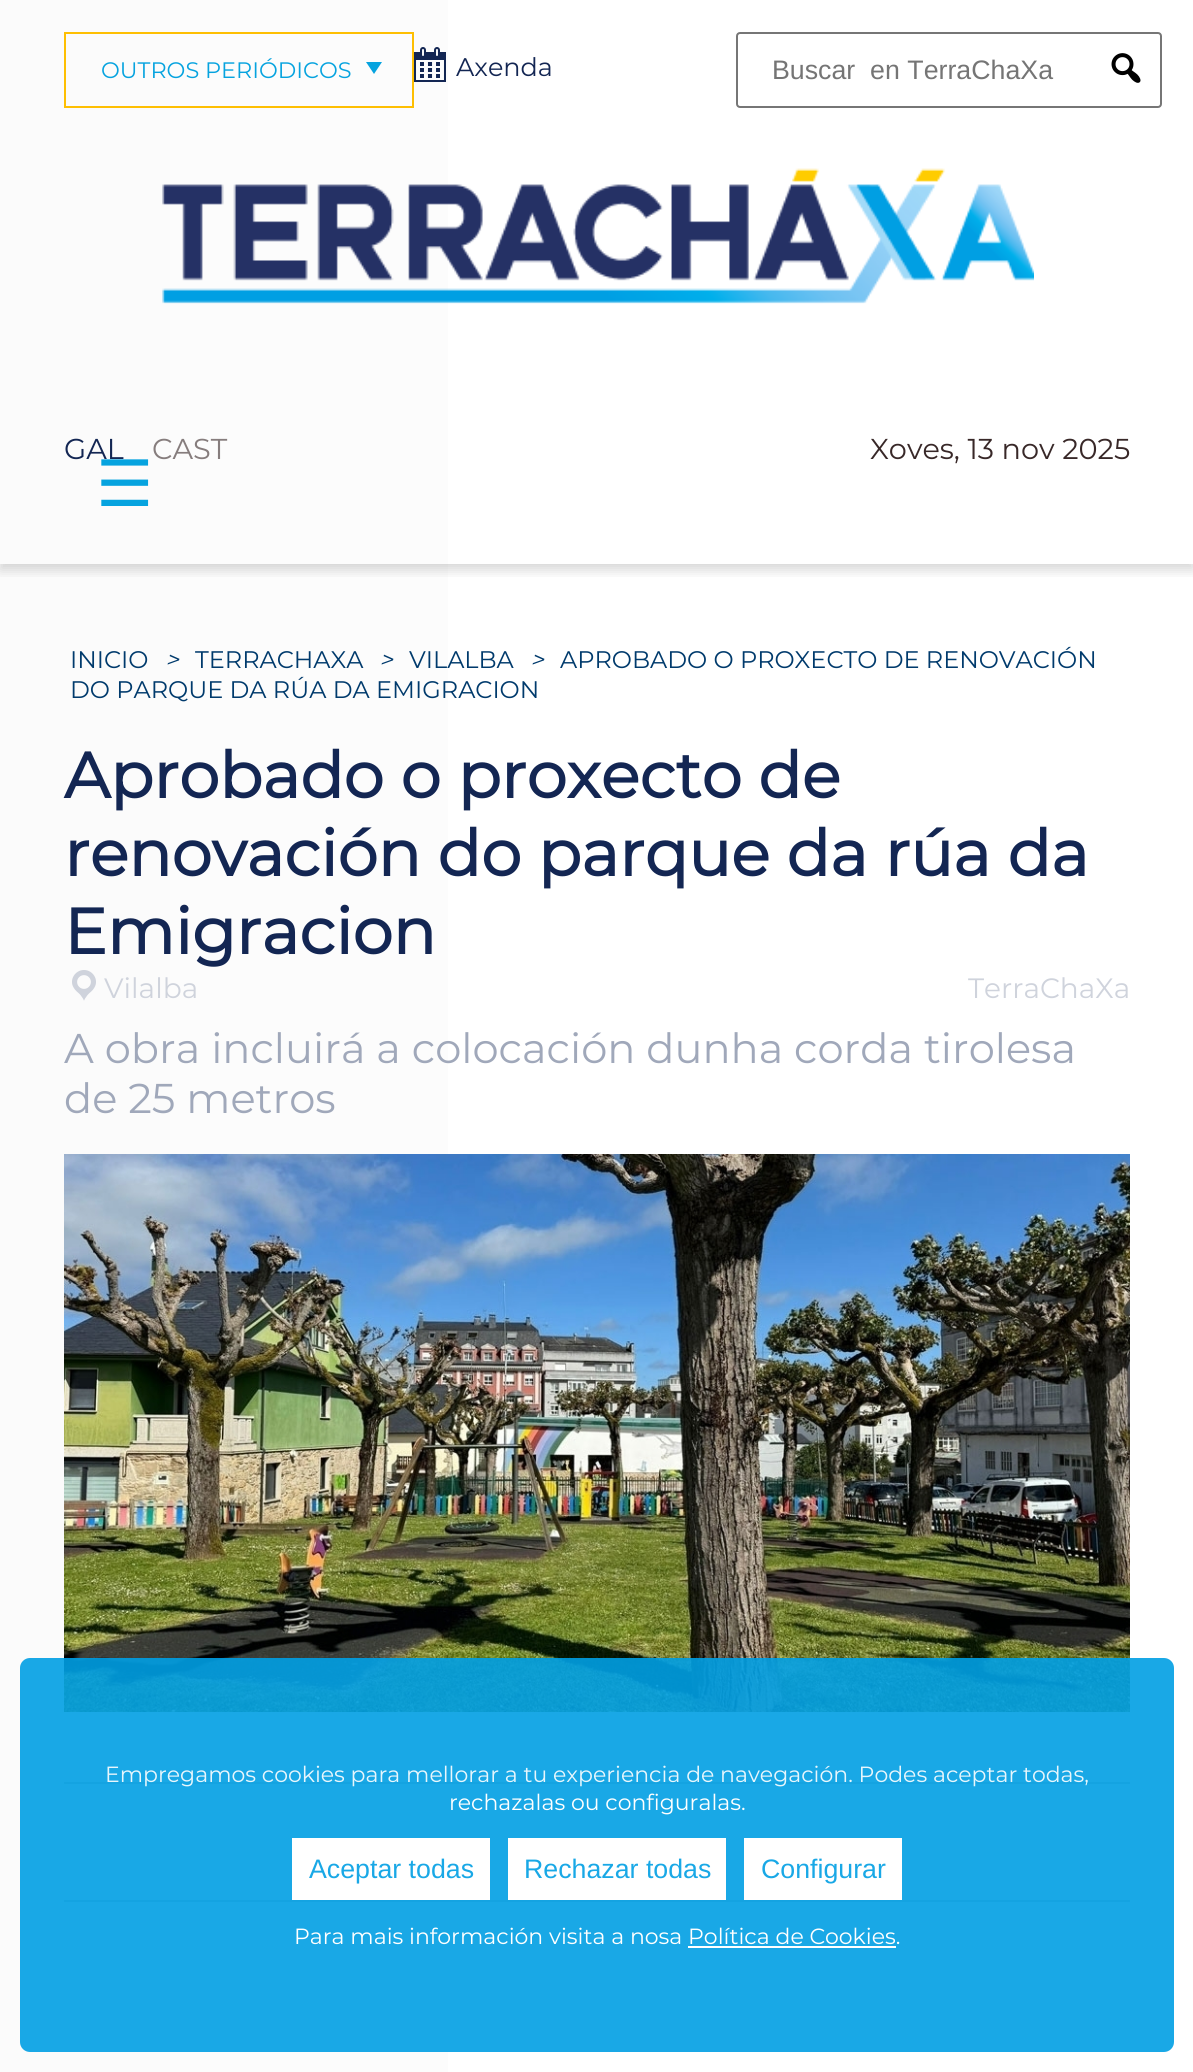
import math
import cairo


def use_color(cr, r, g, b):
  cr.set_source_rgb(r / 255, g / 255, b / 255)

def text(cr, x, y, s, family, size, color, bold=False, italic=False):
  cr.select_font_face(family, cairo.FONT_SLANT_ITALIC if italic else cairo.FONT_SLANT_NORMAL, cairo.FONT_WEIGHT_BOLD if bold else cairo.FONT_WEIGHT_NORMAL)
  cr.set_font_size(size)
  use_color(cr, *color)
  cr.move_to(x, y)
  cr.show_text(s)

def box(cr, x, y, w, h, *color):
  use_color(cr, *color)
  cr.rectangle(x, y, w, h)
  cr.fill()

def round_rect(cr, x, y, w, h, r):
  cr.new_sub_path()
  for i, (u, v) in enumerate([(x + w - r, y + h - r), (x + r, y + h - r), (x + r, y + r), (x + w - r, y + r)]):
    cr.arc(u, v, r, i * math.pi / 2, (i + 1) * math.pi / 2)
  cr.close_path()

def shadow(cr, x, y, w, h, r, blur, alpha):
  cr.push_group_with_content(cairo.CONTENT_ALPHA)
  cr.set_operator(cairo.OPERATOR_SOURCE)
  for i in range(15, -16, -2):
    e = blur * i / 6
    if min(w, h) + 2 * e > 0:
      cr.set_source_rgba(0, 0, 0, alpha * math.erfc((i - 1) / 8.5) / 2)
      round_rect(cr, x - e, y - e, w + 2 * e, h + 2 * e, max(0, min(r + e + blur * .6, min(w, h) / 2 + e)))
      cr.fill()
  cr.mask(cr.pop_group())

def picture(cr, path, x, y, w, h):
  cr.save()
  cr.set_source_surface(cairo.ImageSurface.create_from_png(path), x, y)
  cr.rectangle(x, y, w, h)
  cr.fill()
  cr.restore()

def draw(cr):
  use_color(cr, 255, 255, 255)
  cr.paint()
  gradient = cairo.LinearGradient(0, 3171, 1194, 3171)
  gradient.add_color_stop_rgba(0, 0.984, 0.984, 0.984, 1)
  gradient.add_color_stop_rgba(0.5, 0.992, 0.992, 0.992, 1)
  gradient.add_color_stop_rgba(1, 1, 1, 1, 1)
  cr.set_source(gradient)
  cr.rectangle(0, 0, 448, 2072)
  cr.fill()
  cr.save()
  cr.rectangle(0, 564, 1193, 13)
  cr.clip()
  use_color(cr, 0, 0, 0)
  shadow(cr, 0, 6, 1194, 564, 0, 6, 0.16)
  cr.restore()
  cr.rectangle(65, 33, 348, 74)
  use_color(cr, 254, 191, 2)
  cr.stroke()
  use_color(cr, 6, 163, 223)
  cr.new_path()
  cr.move_to(382, 62)
  cr.line_to(374, 74)
  cr.line_to(366, 62)
  cr.close_path()
  cr.fill()
  picture(cr, "img_01.png", 414, 47, 32, 35)
  round_rect(cr, 737, 33, 424, 74, 3)
  use_color(cr, 118, 118, 118)
  cr.stroke()
  picture(cr, "img_02.png", 1111, 53, 30, 30)
  picture(cr, "img_03.png", 162, 168, 872, 136)
  picture(cr, "img_04.png", 72, 970, 24, 31)
  picture(cr, "img_05.png", 64, 1154, 1066, 558)
  box(cr, 64, 1782, 1066, 2, 204, 204, 204)
  box(cr, 64, 1900, 1066, 2, 204, 204, 204)
  cr.set_source_rgba(0, 0.624, 0.89, 0.9)
  round_rect(cr, 20, 1658, 1154, 394, 10)
  cr.fill()
  box(cr, 292, 1838, 198, 62, 255, 255, 255)
  box(cr, 508, 1838, 218, 62, 255, 255, 255)
  box(cr, 744, 1838, 158, 62, 255, 255, 255)
  box(cr, 688, 1946, 208, 2, 255, 255, 255)
  text(cr, 101, 78, "OUTROS PERIÓDICOS", "Montserrat Thin", 22.4, (6, 163, 223))
  text(cr, 456, 76, "Axenda", "Montserrat Thin", 25.5, (19, 38, 83))
  text(cr, 772, 79, "Buscar  en TerraChaXa", "Liberation Sans", 26.75, (117, 117, 117))
  text(cr, 64, 459, "GAL", "Montserrat Thin", 28.75, (19, 38, 83))
  text(cr, 152, 459, "CAST", "Montserrat Thin", 28.75, (134, 125, 125))
  text(cr, 870, 459, "Xoves, 13 nov 2025", "Montserrat Thin", 28.75, (56, 40, 40))
  text(cr, 96, 506, "☰", "DejaVu Sans", 64, (6, 163, 223))
  text(cr, 70, 668, "INICIO", "Montserrat Thin", 24, (0, 58, 108))
  text(cr, 165, 668, ">", "Montserrat Thin", 24, (0, 58, 108), italic=True)
  text(cr, 195, 668, "TERRACHAXA", "Montserrat Thin", 24, (0, 58, 108))
  text(cr, 379, 668, ">", "Montserrat Thin", 24, (0, 58, 108), italic=True)
  text(cr, 409, 668, "VILALBA", "Montserrat Thin", 24, (0, 58, 108))
  text(cr, 530, 668, ">", "Montserrat Thin", 24, (0, 58, 108), italic=True)
  text(cr, 560, 668, "APROBADO O PROXECTO DE RENOVACIÓN", "Montserrat Thin", 24, (0, 58, 108))
  text(cr, 70, 698, "DO PARQUE DA RÚA DA EMIGRACION", "Montserrat Thin", 24, (0, 58, 108))
  text(cr, 64, 798, "Aprobado o proxecto de", "Montserrat", 64, (19, 38, 83), bold=True)
  text(cr, 64, 876, "renovación do parque da rúa da", "Montserrat", 64, (19, 38, 83), bold=True)
  text(cr, 64, 954, "Emigracion", "Montserrat", 64, (19, 38, 83), bold=True)
  text(cr, 104, 998, "Vilalba", "Montserrat Thin", 28, (207, 211, 220))
  text(cr, 968, 998, "TerraChaXa", "Montserrat Thin", 28, (207, 211, 220))
  text(cr, 64, 1063, "A obra incluirá a colocación dunha corda tirolesa", "Montserrat Thin", 41.6, (160, 168, 186))
  text(cr, 64, 1113, "de 25 metros", "Montserrat Thin", 41.6, (160, 168, 186))
  text(cr, 105, 1782, "Empregamos cookies para mellorar a tu experiencia de navegación. Podes aceptar todas,", "Montserrat Thin", 22, (232, 246, 252))
  text(cr, 449, 1810, "rechazalas ou configuralas.", "Montserrat Thin", 22, (255, 255, 255))
  text(cr, 309, 1878, "Aceptar todas", "Liberation Sans", 26.75, (25, 168, 230))
  text(cr, 524, 1878, "Rechazar todas", "Liberation Sans", 26.75, (25, 168, 230))
  text(cr, 761, 1878, "Configurar", "Liberation Sans", 26.75, (25, 168, 230))
  text(cr, 294, 1944, "Para mais información visita a nosa Política de Cookies.", "Montserrat Thin", 22, (255, 255, 255))


surface = cairo.ImageSurface(cairo.FORMAT_RGB24, 1193, 2072)
cr = cairo.Context(surface)
options = cairo.FontOptions()
options.set_hint_metrics(cairo.HINT_METRICS_OFF)
options.set_hint_style(cairo.HINT_STYLE_NONE)
cr.set_font_options(options)
cr.set_miter_limit(4)
draw(cr)
surface.write_to_png("out.png")
